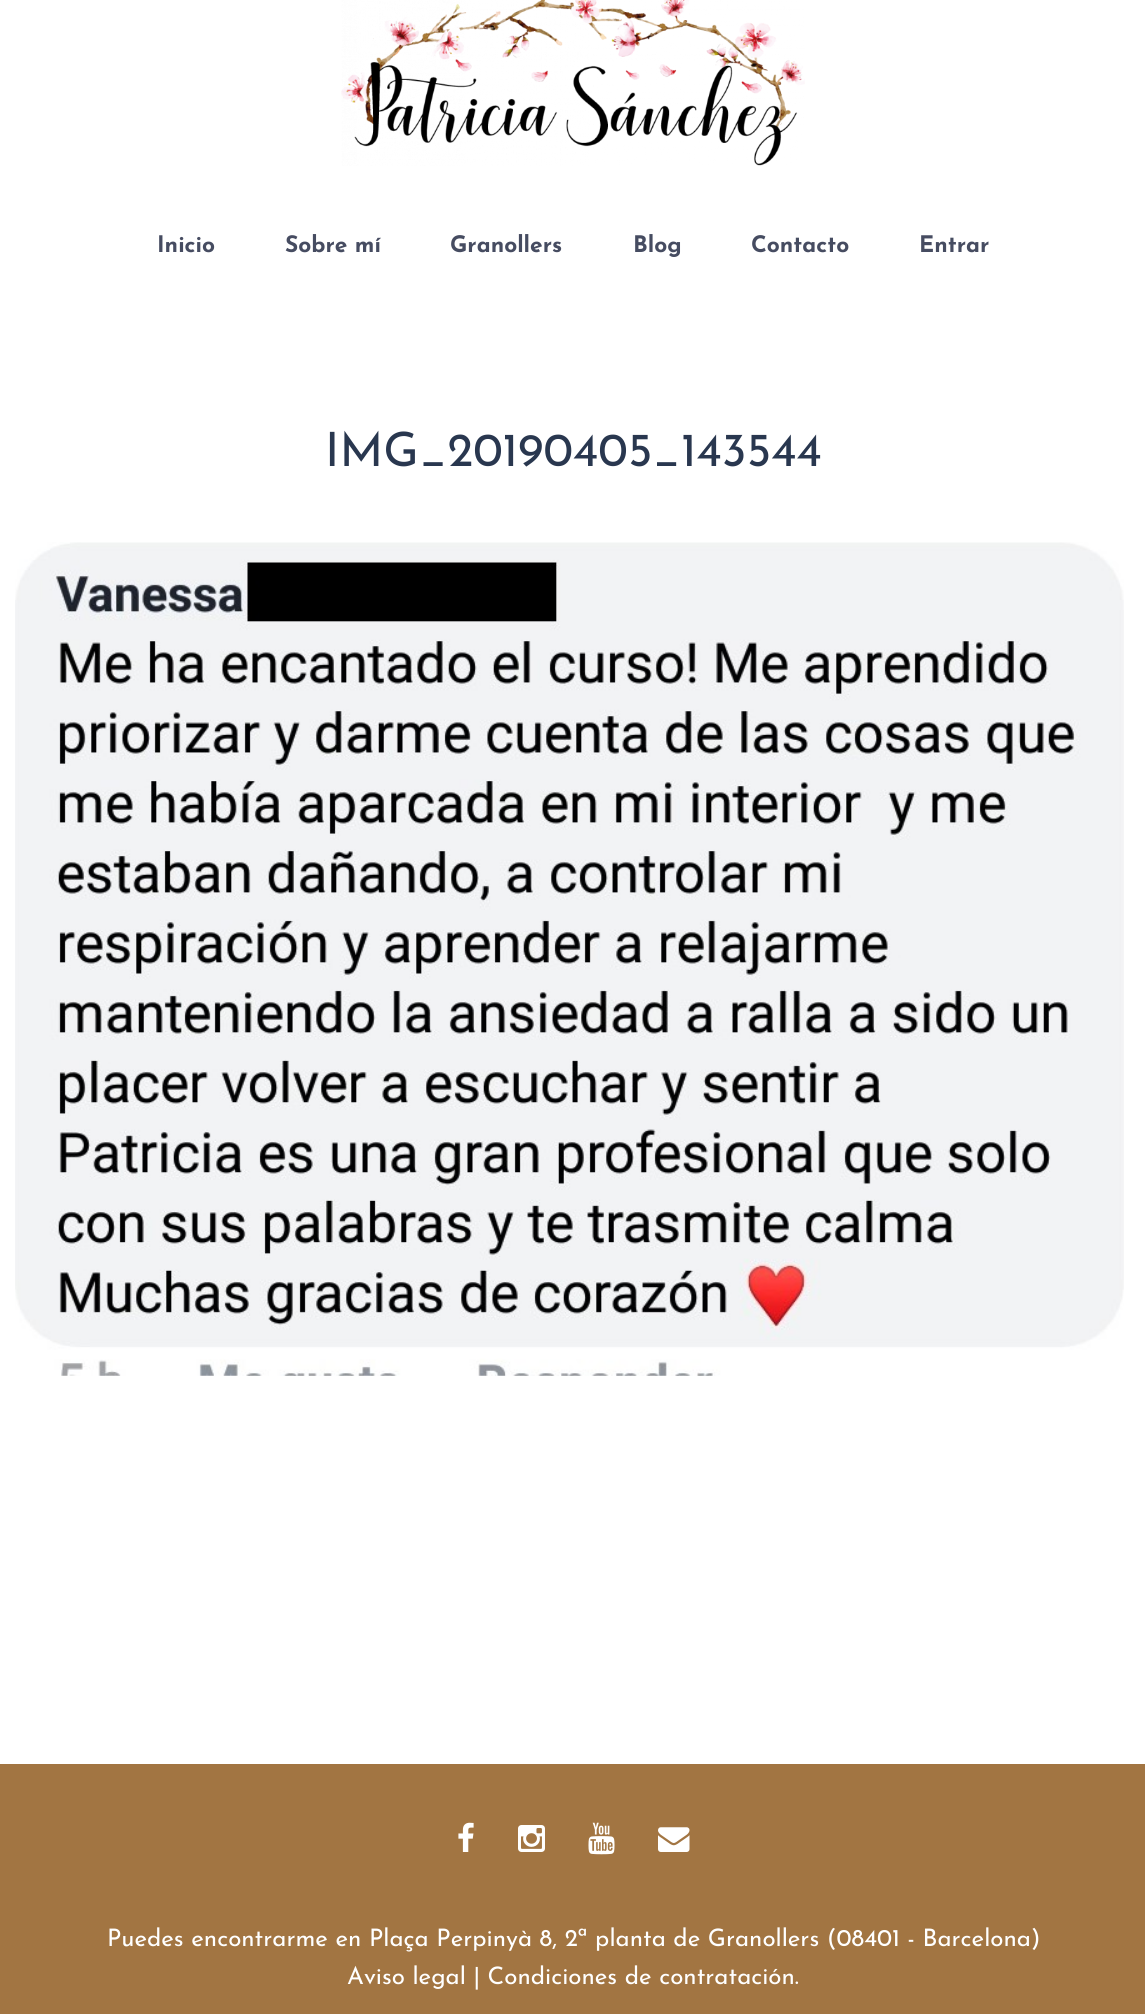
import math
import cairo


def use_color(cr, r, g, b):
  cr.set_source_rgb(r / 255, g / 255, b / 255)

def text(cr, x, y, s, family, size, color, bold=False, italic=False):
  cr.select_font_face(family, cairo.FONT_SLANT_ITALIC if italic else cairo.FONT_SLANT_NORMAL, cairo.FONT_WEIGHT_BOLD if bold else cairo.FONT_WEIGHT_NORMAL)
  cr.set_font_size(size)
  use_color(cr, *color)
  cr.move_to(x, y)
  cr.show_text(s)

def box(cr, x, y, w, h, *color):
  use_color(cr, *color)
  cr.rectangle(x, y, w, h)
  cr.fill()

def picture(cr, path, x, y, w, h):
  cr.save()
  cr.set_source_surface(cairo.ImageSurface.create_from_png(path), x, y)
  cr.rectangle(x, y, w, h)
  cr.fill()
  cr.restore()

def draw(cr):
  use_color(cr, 255, 255, 255)
  cr.paint()
  picture(cr, "img_01.png", 341, 0, 464, 166)
  picture(cr, "img_02.png", 15, 542, 1109, 834)
  box(cr, 0, 1764, 1145, 250, 162, 117, 66)
  picture(cr, "img_03.png", 458, 1822, 16, 30)
  picture(cr, "img_04.png", 518, 1825, 27, 27)
  picture(cr, "img_05.png", 588, 1822, 27, 33)
  picture(cr, "img_06.png", 658, 1827, 32, 25)
  text(cr, 157, 252, "Inicio", "Josefin Sans", 22.75, (70, 76, 97), bold=True)
  text(cr, 285, 252, "Sobre mí", "Josefin Sans", 22.75, (70, 76, 97), bold=True)
  text(cr, 450, 252, "Granollers", "Josefin Sans", 22.75, (70, 76, 97), bold=True)
  text(cr, 633, 252, "Blog", "Josefin Sans", 22.75, (70, 76, 97), bold=True)
  text(cr, 751, 252, "Contacto", "Josefin Sans", 22.75, (70, 76, 97), bold=True)
  text(cr, 919, 252, "Entrar", "Josefin Sans", 22.75, (70, 76, 97), bold=True)
  text(cr, 325, 466, "IMG_20190405_143544", "Josefin Sans", 47.25, (41, 55, 79))
  text(cr, 107, 1946, "Puedes encontrarme en Plaça Perpinyà 8, 2ª planta de Granollers (08401 - Barcelona)", "Josefin Sans", 24.1, (255, 255, 255))
  text(cr, 347, 1984, "Aviso legal | Condiciones de contratación.", "Josefin Sans", 24.1, (255, 255, 255))


surface = cairo.ImageSurface(cairo.FORMAT_RGB24, 1145, 2014)
cr = cairo.Context(surface)
options = cairo.FontOptions()
options.set_hint_metrics(cairo.HINT_METRICS_OFF)
options.set_hint_style(cairo.HINT_STYLE_NONE)
cr.set_font_options(options)
cr.set_miter_limit(4)
draw(cr)
surface.write_to_png("out.png")
